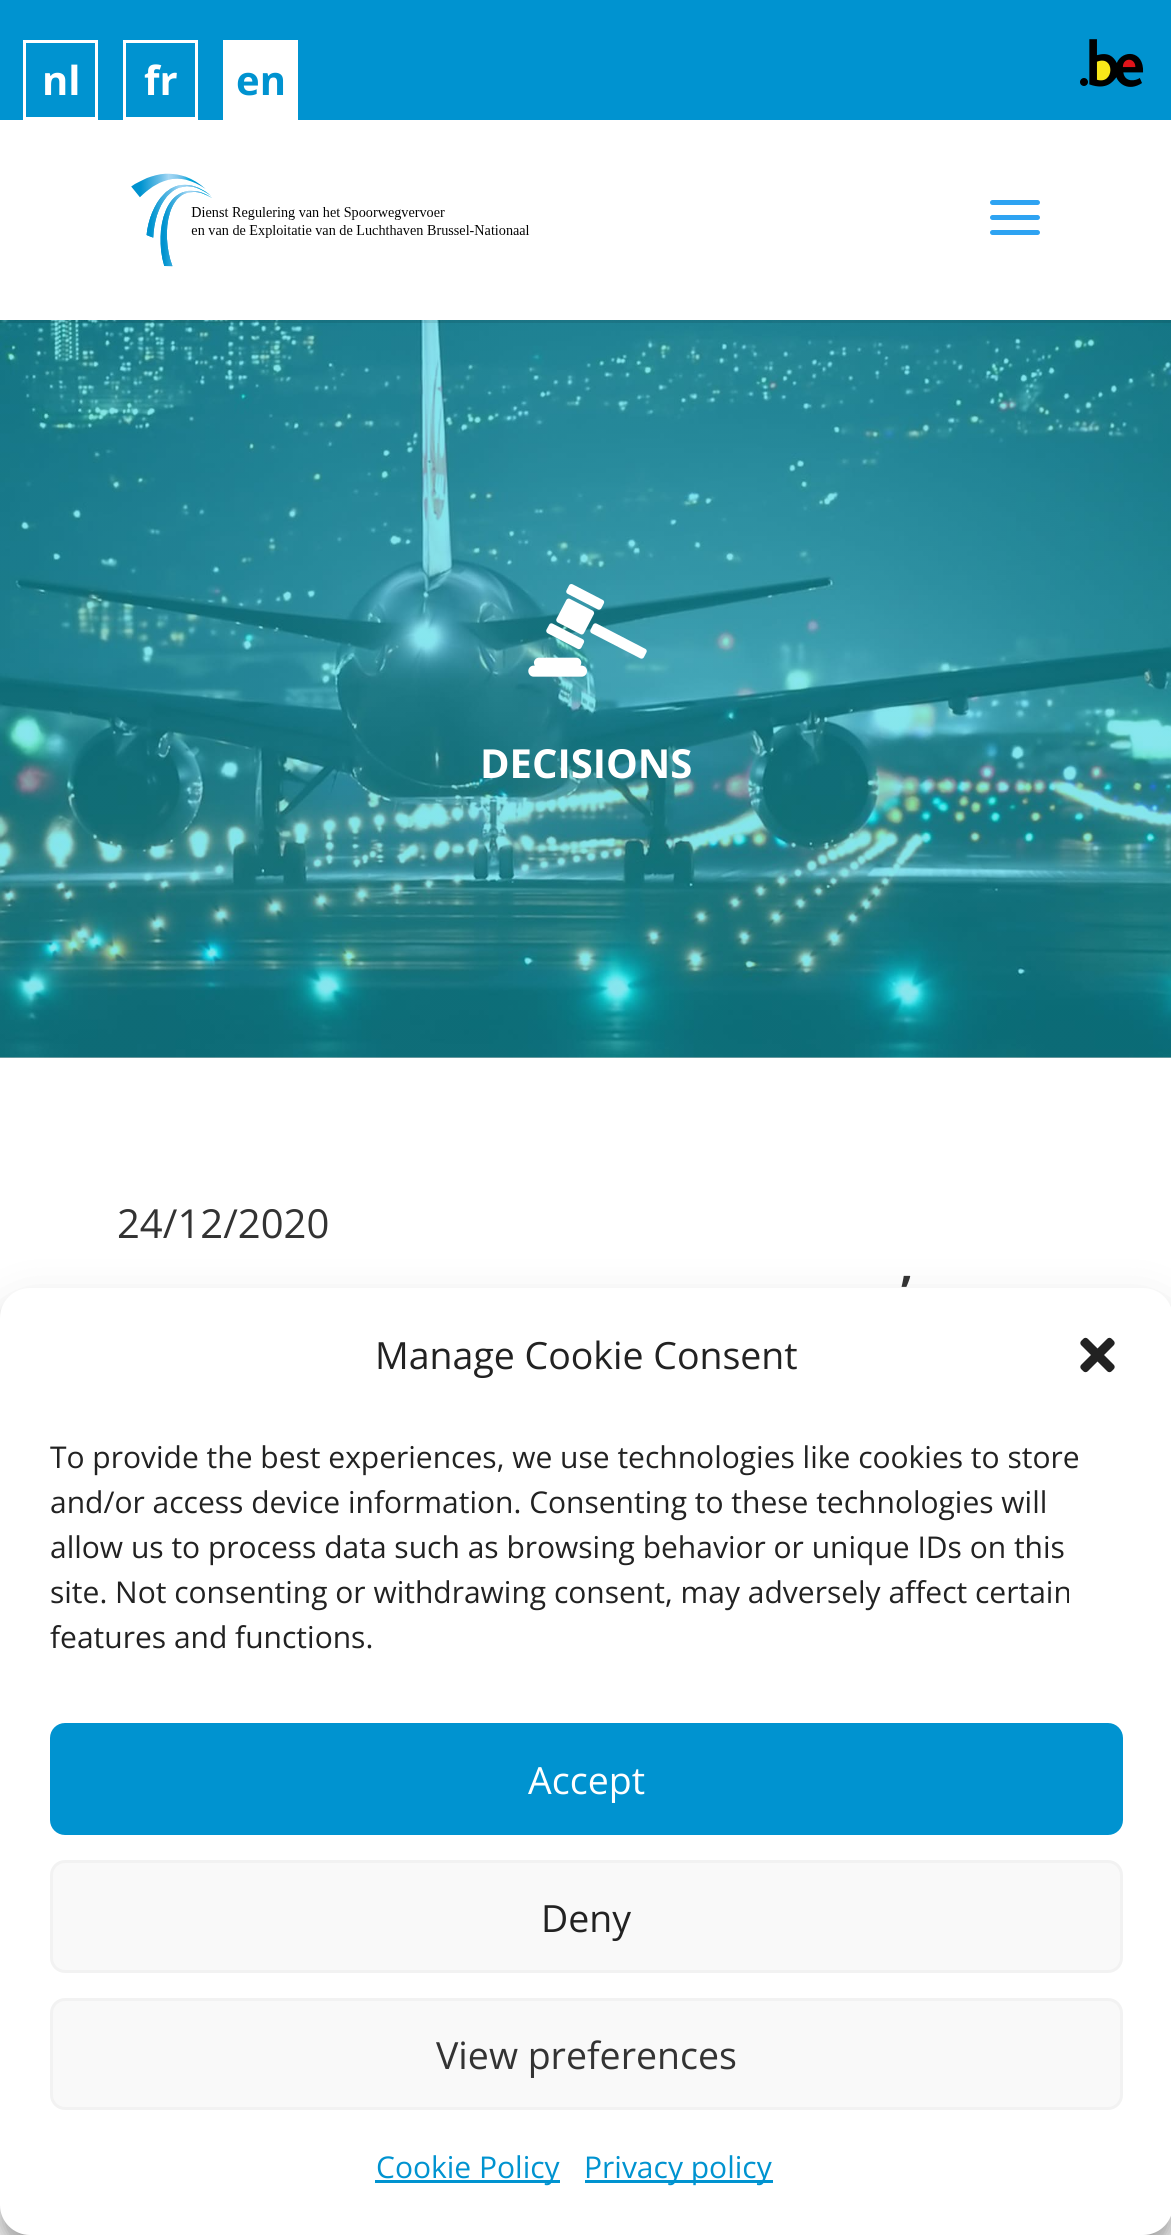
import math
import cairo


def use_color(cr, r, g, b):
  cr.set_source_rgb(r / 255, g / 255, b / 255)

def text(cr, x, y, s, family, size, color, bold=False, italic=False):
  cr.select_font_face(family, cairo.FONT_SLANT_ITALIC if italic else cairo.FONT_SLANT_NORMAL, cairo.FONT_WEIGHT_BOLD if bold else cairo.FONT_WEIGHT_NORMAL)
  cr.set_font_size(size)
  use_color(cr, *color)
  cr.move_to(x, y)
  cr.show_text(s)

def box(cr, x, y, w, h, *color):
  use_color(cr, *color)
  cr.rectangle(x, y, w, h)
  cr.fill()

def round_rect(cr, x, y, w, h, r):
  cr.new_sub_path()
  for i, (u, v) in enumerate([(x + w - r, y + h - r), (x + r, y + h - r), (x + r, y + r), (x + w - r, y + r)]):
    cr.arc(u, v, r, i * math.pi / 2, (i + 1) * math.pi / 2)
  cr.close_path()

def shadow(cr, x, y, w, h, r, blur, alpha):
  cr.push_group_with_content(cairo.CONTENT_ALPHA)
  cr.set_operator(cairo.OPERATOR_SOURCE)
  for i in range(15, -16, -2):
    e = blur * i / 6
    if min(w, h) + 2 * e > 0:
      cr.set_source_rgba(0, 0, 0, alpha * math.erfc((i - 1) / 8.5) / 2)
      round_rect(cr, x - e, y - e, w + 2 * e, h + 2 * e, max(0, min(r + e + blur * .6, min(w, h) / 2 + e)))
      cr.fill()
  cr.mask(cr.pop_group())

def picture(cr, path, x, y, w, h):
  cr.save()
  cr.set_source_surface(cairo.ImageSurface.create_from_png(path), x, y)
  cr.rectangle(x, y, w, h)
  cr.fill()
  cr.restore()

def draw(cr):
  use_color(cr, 255, 255, 255)
  cr.paint()
  box(cr, 0, 0, 1171, 120, 0, 147, 208)
  cr.rectangle(24.5, 41.5, 72, 77)
  use_color(cr, 255, 255, 255)
  cr.set_line_width(3)
  cr.stroke()
  cr.rectangle(124.5, 41.5, 72, 77)
  cr.stroke()
  box(cr, 223, 40, 75, 80, 255, 255, 255)
  picture(cr, "img_01.png", 1080, 39, 64, 48)
  picture(cr, "img_04.png", 0, 320, 1171, 738)
  cr.set_source_rgba(0, 0, 0, 0.1)
  cr.new_path()
  cr.move_to(0, 320)
  cr.line_to(0, 323)
  cr.line_to(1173, 323)
  cr.line_to(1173, 123)
  cr.line_to(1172, 123)
  cr.line_to(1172, 320)
  cr.close_path()
  cr.fill()
  picture(cr, "img_02.png", 131, 173, 399, 94)
  picture(cr, "img_03.png", 990, 200, 50, 35)
  picture(cr, "img_05.png", 528, 584, 119, 93)
  use_color(cr, 0, 0, 0)
  shadow(cr, 0, 1303, 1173, 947, 30, 7.5, 0.23)
  shadow(cr, 0, 1313, 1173, 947, 30, 25, 0.19)
  use_color(cr, 255, 255, 255)
  round_rect(cr, 0, 1288, 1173, 947, 30)
  cr.fill()
  picture(cr, "img_06.png", 1080, 1337, 35, 36)
  use_color(cr, 0, 147, 208)
  round_rect(cr, 51.5, 1724.5, 1070, 109, 13.5)
  cr.fill_preserve()
  cr.stroke()
  use_color(cr, 249, 249, 249)
  round_rect(cr, 51.5, 1861.5, 1070, 110, 13.5)
  cr.fill_preserve()
  use_color(cr, 242, 242, 242)
  cr.stroke()
  use_color(cr, 249, 249, 249)
  round_rect(cr, 51.5, 1999.5, 1070, 109, 13.5)
  cr.fill_preserve()
  use_color(cr, 242, 242, 242)
  cr.stroke()
  box(cr, 375, 2180, 185, 3, 0, 147, 208)
  box(cr, 585, 2180, 188, 3, 0, 147, 208)
  text(cr, 42, 95, "nl", "Open Sans", 40, (255, 255, 255), bold=True)
  text(cr, 144, 95, "fr", "Open Sans", 40, (255, 255, 255), bold=True)
  text(cr, 236, 95, "en", "Open Sans", 40, (0, 147, 208), bold=True)
  text(cr, 480, 778, "DECISIONS", "Open Sans", 40, (255, 255, 255), bold=True)
  text(cr, 117, 1238, "24/12/2020", "Open Sans", 40, (51, 51, 51))
  text(cr, 901, 1308, "’", "Open Sans", 45, (51, 51, 51), bold=True)
  text(cr, 375, 1369, "Manage Cookie Consent", "Open Sans", 37.5, (34, 34, 34))
  text(cr, 50, 1468, "To provide the best experiences, we use technologies like cookies to store", "Open Sans", 30, (34, 34, 34))
  text(cr, 50, 1513, "and/or access device information. Consenting to these technologies will", "Open Sans", 30, (34, 34, 34))
  text(cr, 50, 1558, "allow us to process data such as browsing behavior or unique IDs on this", "Open Sans", 30, (34, 34, 34))
  text(cr, 50, 1603, "site. Not consenting or withdrawing consent, may adversely affect certain", "Open Sans", 30, (34, 34, 34))
  text(cr, 50, 1648, "features and functions.", "Open Sans", 30, (34, 34, 34))
  text(cr, 528, 1794, "Accept", "Open Sans", 37.5, (255, 255, 255))
  text(cr, 541, 1932, "Deny", "Open Sans", 37.5, (34, 34, 34))
  text(cr, 436, 2069, "View preferences", "Open Sans", 37.5, (51, 51, 51))
  text(cr, 376, 2178, "Cookie Policy", "Open Sans", 30, (0, 147, 208))
  text(cr, 584, 2178, "Privacy policy", "Open Sans", 30, (0, 147, 208))


surface = cairo.ImageSurface(cairo.FORMAT_RGB24, 1171, 2235)
cr = cairo.Context(surface)
options = cairo.FontOptions()
options.set_hint_metrics(cairo.HINT_METRICS_OFF)
options.set_hint_style(cairo.HINT_STYLE_NONE)
cr.set_font_options(options)
cr.set_miter_limit(4)
draw(cr)
surface.write_to_png("out.png")
